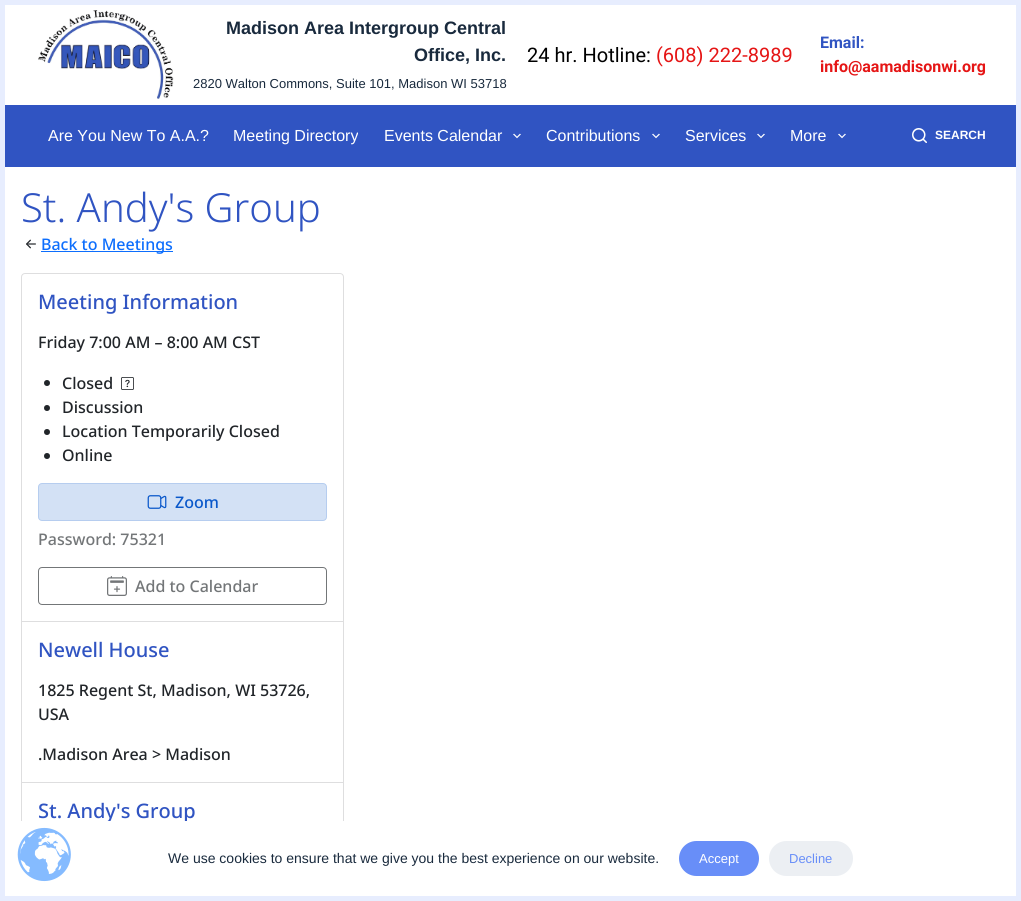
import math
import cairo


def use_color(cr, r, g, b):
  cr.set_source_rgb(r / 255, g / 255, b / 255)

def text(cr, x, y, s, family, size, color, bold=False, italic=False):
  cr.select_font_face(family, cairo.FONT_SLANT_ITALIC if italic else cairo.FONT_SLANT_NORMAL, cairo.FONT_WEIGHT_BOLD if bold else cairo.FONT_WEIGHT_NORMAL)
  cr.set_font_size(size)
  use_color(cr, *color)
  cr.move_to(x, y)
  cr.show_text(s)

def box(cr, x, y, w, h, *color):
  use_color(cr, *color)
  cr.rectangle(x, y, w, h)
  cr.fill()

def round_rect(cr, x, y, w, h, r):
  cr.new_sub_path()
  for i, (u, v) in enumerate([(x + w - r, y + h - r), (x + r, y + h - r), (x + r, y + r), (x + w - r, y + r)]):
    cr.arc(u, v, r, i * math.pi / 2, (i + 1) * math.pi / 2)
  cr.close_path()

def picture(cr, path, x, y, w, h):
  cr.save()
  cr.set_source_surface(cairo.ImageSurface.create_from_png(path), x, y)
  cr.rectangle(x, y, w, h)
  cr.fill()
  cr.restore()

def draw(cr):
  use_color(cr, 231, 237, 254)
  cr.paint()
  box(cr, 5, 5, 1011, 100, 255, 255, 255)
  picture(cr, "img_01.png", 38, 10, 136, 89)
  box(cr, 5, 105, 1011, 62, 48, 84, 194)
  picture(cr, "img_02.png", 513, 133, 8, 6)
  picture(cr, "img_02.png", 652, 133, 8, 6)
  picture(cr, "img_02.png", 757, 133, 8, 6)
  picture(cr, "img_02.png", 838, 133, 8, 6)
  picture(cr, "img_03.png", 912, 128, 15, 15)
  box(cr, 5, 167, 1011, 654, 255, 255, 255)
  picture(cr, "img_04.png", 26, 239, 10, 10)
  box(cr, 41, 251, 132, 1, 13, 110, 253)
  round_rect(cr, 21.5, 273.5, 322, 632, 3.5)
  use_color(cr, 222, 222, 223)
  cr.set_line_width(1)
  cr.stroke()
  box(cr, 22, 621, 321, 1, 222, 222, 223)
  use_color(cr, 33, 37, 41)
  cr.arc(47, 383, 3, 0, 2 * math.pi)
  cr.fill()
  picture(cr, "img_05.png", 121, 377, 13, 13)
  cr.arc(47, 408, 3, 0, 2 * math.pi)
  cr.fill()
  cr.arc(47, 432, 3, 0, 2 * math.pi)
  cr.fill()
  cr.arc(47, 456, 3, 0, 2 * math.pi)
  cr.fill()
  use_color(cr, 211, 225, 245)
  round_rect(cr, 38.5, 483.5, 288, 37, 3.5)
  cr.fill_preserve()
  use_color(cr, 182, 205, 239)
  cr.stroke()
  picture(cr, "img_06.png", 147, 495, 20, 14)
  round_rect(cr, 38.5, 567.5, 288, 37, 3.5)
  use_color(cr, 115, 118, 120)
  cr.stroke()
  picture(cr, "img_07.png", 107, 576, 20, 20)
  box(cr, 22, 782, 321, 1, 222, 222, 223)
  box(cr, 21, 896, 323, 5, 231, 237, 254)
  text(cr, 226, 34, "Madison Area Intergroup Central", "Liberation Sans", 18, (25, 42, 61), bold=True)
  text(cr, 414, 61, "Office, Inc.", "Liberation Sans", 18, (25, 42, 61), bold=True)
  text(cr, 193, 88, "2820 Walton Commons, Suite 101, Madison WI 53718", "Liberation Sans", 13, (25, 42, 61))
  text(cr, 527, 62, "24 hr. Hotline:", "Roboto", 20, (0, 0, 0))
  text(cr, 656, 62, "(608) 222-8989", "Roboto", 20, (229, 21, 21))
  text(cr, 820, 48, "Email:", "Roboto", 16, (48, 84, 194), bold=True)
  text(cr, 820, 72, "info@aamadisonwi.org", "Roboto", 16, (229, 21, 21), bold=True)
  text(cr, 48, 141, "Are You New To A.A.?", "Liberation Sans", 16, (255, 255, 255))
  text(cr, 233, 141, "Meeting Directory", "Liberation Sans", 16, (255, 255, 255))
  text(cr, 384, 141, "Events Calendar", "Liberation Sans", 16, (255, 255, 255))
  text(cr, 546, 141, "Contributions", "Liberation Sans", 16, (255, 255, 255))
  text(cr, 685, 141, "Services", "Liberation Sans", 16, (255, 255, 255))
  text(cr, 790, 141, "More", "Liberation Sans", 16, (255, 255, 255))
  text(cr, 935, 139, "SEARCH", "Liberation Sans", 12, (255, 255, 255), bold=True)
  text(cr, 21, 222, "St. Andy's Group", "Noto Sans Light", 40, (48, 84, 194))
  text(cr, 41, 250, "Back to Meetings", "Noto Sans Medium", 16, (13, 110, 253))
  text(cr, 38, 309, "Meeting Information", "Noto Sans Medium", 20, (48, 84, 194))
  text(cr, 38, 348, "Friday 7:00 AM – 8:00 AM CST", "Noto Sans Medium", 16, (33, 37, 41))
  text(cr, 62, 389, "Closed", "Noto Sans Medium", 16, (33, 37, 41))
  text(cr, 62, 413, "Discussion", "Noto Sans Medium", 16, (33, 37, 41))
  text(cr, 62, 437, "Location Temporarily Closed", "Noto Sans Medium", 16, (33, 37, 41))
  text(cr, 62, 461, "Online", "Noto Sans Medium", 16, (33, 37, 41))
  text(cr, 175, 508, "Zoom", "Noto Sans Medium", 16, (10, 88, 202))
  text(cr, 38, 545, "Password: 75321", "Noto Sans Medium", 16, (115, 118, 120))
  text(cr, 135, 592, "Add to Calendar", "Noto Sans Medium", 16, (115, 118, 120))
  text(cr, 38, 657, "Newell House", "Noto Sans Medium", 20, (48, 84, 194))
  text(cr, 38, 696, "1825 Regent St, Madison, WI 53726,", "Noto Sans Medium", 16, (33, 37, 41))
  text(cr, 38, 720, "USA", "Noto Sans Medium", 16, (33, 37, 41))
  text(cr, 38, 760, ".Madison Area > Madison", "Noto Sans Medium", 16, (33, 37, 41))
  text(cr, 38, 818, "St. Andy's Group", "Noto Sans Medium", 20, (48, 84, 194))
  box(cr, 5, 821, 1011, 75, 255, 255, 255)
  picture(cr, "img_08.png", 17, 827, 54, 55)
  text(cr, 168, 863, "We use cookies to ensure that we give you the best experience on our website.", "Liberation Sans", 14, (25, 42, 61))
  use_color(cr, 104, 142, 248)
  round_rect(cr, 679, 841, 80, 35, 17.5)
  cr.fill()
  text(cr, 699, 863, "Accept", "Liberation Sans", 13, (255, 255, 255))
  use_color(cr, 236, 239, 243)
  round_rect(cr, 769, 841, 84, 35, 17.5)
  cr.fill()
  text(cr, 789, 863, "Decline", "Liberation Sans", 13, (104, 142, 248))


surface = cairo.ImageSurface(cairo.FORMAT_RGB24, 1021, 901)
cr = cairo.Context(surface)
options = cairo.FontOptions()
options.set_hint_metrics(cairo.HINT_METRICS_OFF)
options.set_hint_style(cairo.HINT_STYLE_NONE)
cr.set_font_options(options)
cr.set_miter_limit(4)
draw(cr)
surface.write_to_png("out.png")
